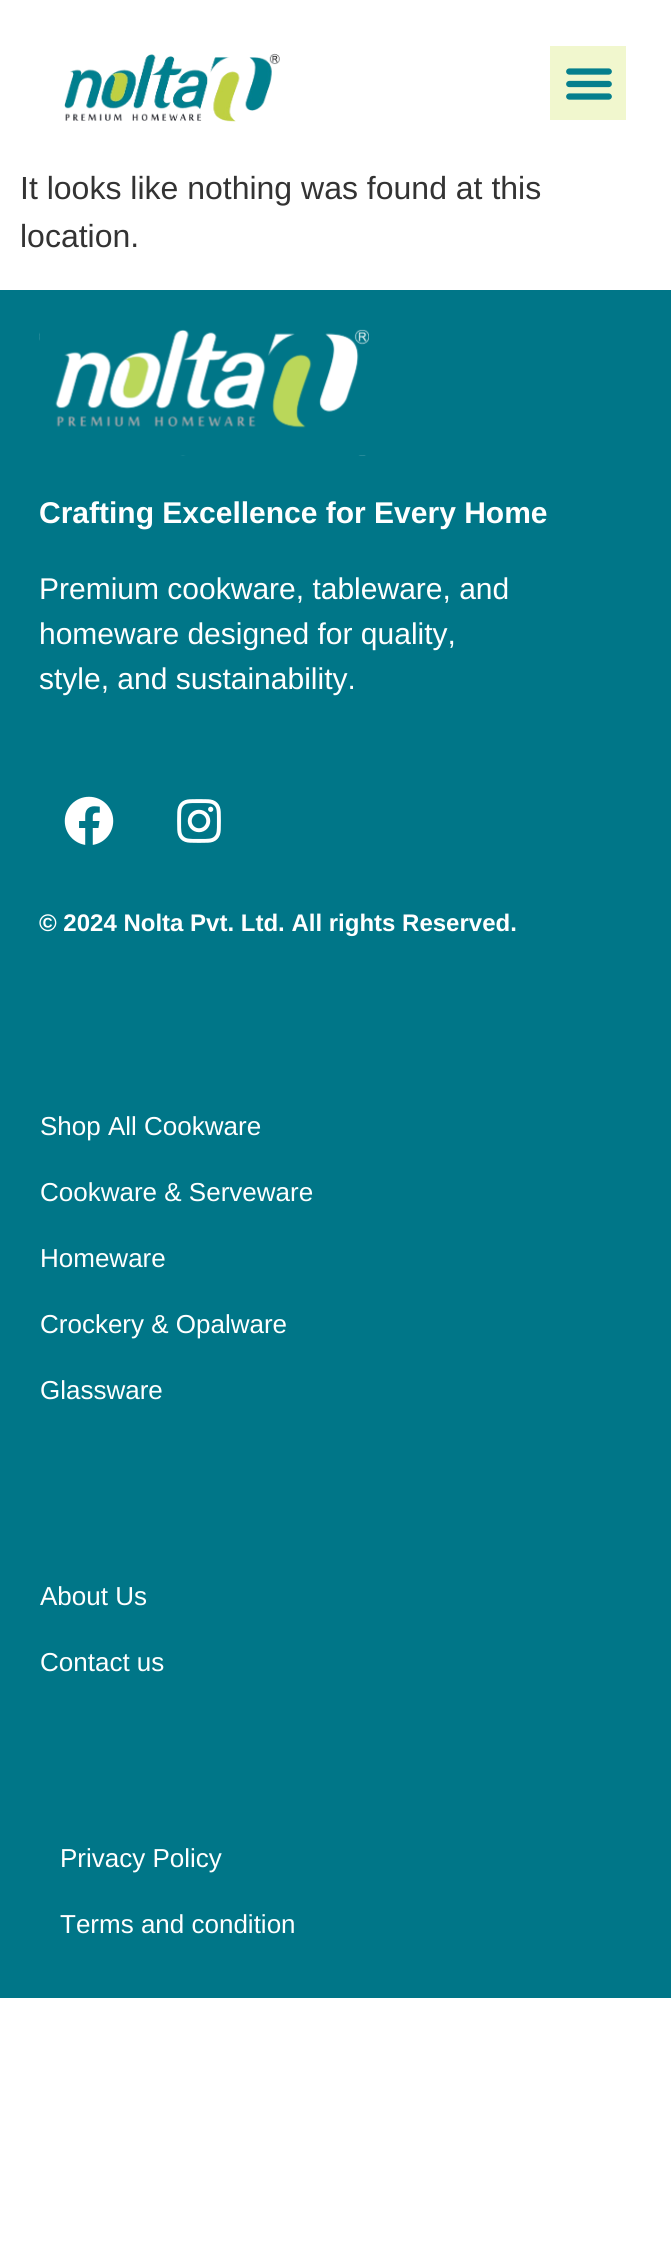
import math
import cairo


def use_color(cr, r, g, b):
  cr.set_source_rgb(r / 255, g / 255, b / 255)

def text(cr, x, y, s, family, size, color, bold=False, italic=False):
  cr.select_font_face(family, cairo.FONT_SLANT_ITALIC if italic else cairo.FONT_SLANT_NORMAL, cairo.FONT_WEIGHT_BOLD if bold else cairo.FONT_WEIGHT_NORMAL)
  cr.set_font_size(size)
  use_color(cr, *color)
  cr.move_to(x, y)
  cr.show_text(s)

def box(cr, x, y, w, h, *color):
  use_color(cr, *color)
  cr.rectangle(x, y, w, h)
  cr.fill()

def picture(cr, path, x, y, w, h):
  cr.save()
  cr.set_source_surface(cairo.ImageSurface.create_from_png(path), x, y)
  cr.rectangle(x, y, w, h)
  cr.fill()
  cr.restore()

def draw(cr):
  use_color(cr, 255, 255, 255)
  cr.paint()
  picture(cr, "img_01.png", 64, 53, 216, 69)
  box(cr, 550, 46, 76, 74, 241, 247, 206)
  picture(cr, "img_02.png", 566, 68, 46, 32)
  box(cr, 0, 290, 671, 1708, 0, 118, 136)
  picture(cr, "img_03.png", 39, 329, 330, 127)
  picture(cr, "img_04.png", 64, 796, 50, 49)
  picture(cr, "img_05.png", 177, 799, 44, 44)
  text(cr, 20, 199, "It looks like nothing was found at this", "Liberation Sans", 32, (51, 51, 51))
  text(cr, 20, 247, "location.", "Liberation Sans", 32, (51, 51, 51))
  text(cr, 39, 523, "Crafting Excellence for Every Home", "Liberation Sans", 30, (255, 255, 255), bold=True)
  text(cr, 39, 599, "Premium cookware, tableware, and", "Liberation Sans", 30, (255, 255, 255))
  text(cr, 39, 644, "homeware designed for quality,", "Liberation Sans", 30, (255, 255, 255))
  text(cr, 39, 689, "style, and sustainability.", "Liberation Sans", 30, (255, 255, 255))
  text(cr, 39, 931, "© 2024 Nolta Pvt. Ltd. All rights Reserved.", "Liberation Sans", 24, (255, 255, 255), bold=True)
  text(cr, 40, 1135, "Shop All Cookware", "Liberation Sans", 26, (255, 255, 255))
  text(cr, 40, 1201, "Cookware & Serveware", "Liberation Sans", 26, (255, 255, 255))
  text(cr, 40, 1267, "Homeware", "Liberation Sans", 26, (255, 255, 255))
  text(cr, 40, 1333, "Crockery & Opalware", "Liberation Sans", 26, (255, 255, 255))
  text(cr, 40, 1399, "Glassware", "Liberation Sans", 26, (255, 255, 255))
  text(cr, 40, 1605, "About Us", "Liberation Sans", 26, (255, 255, 255))
  text(cr, 40, 1671, "Contact us", "Liberation Sans", 26, (255, 255, 255))
  text(cr, 60, 1867, "Privacy Policy", "Liberation Sans", 26, (255, 255, 255))
  text(cr, 60, 1933, "Terms and condition", "Liberation Sans", 26, (255, 255, 255))


surface = cairo.ImageSurface(cairo.FORMAT_RGB24, 671, 2245)
cr = cairo.Context(surface)
options = cairo.FontOptions()
options.set_hint_metrics(cairo.HINT_METRICS_OFF)
options.set_hint_style(cairo.HINT_STYLE_NONE)
cr.set_font_options(options)
cr.set_miter_limit(4)
draw(cr)
surface.write_to_png("out.png")
